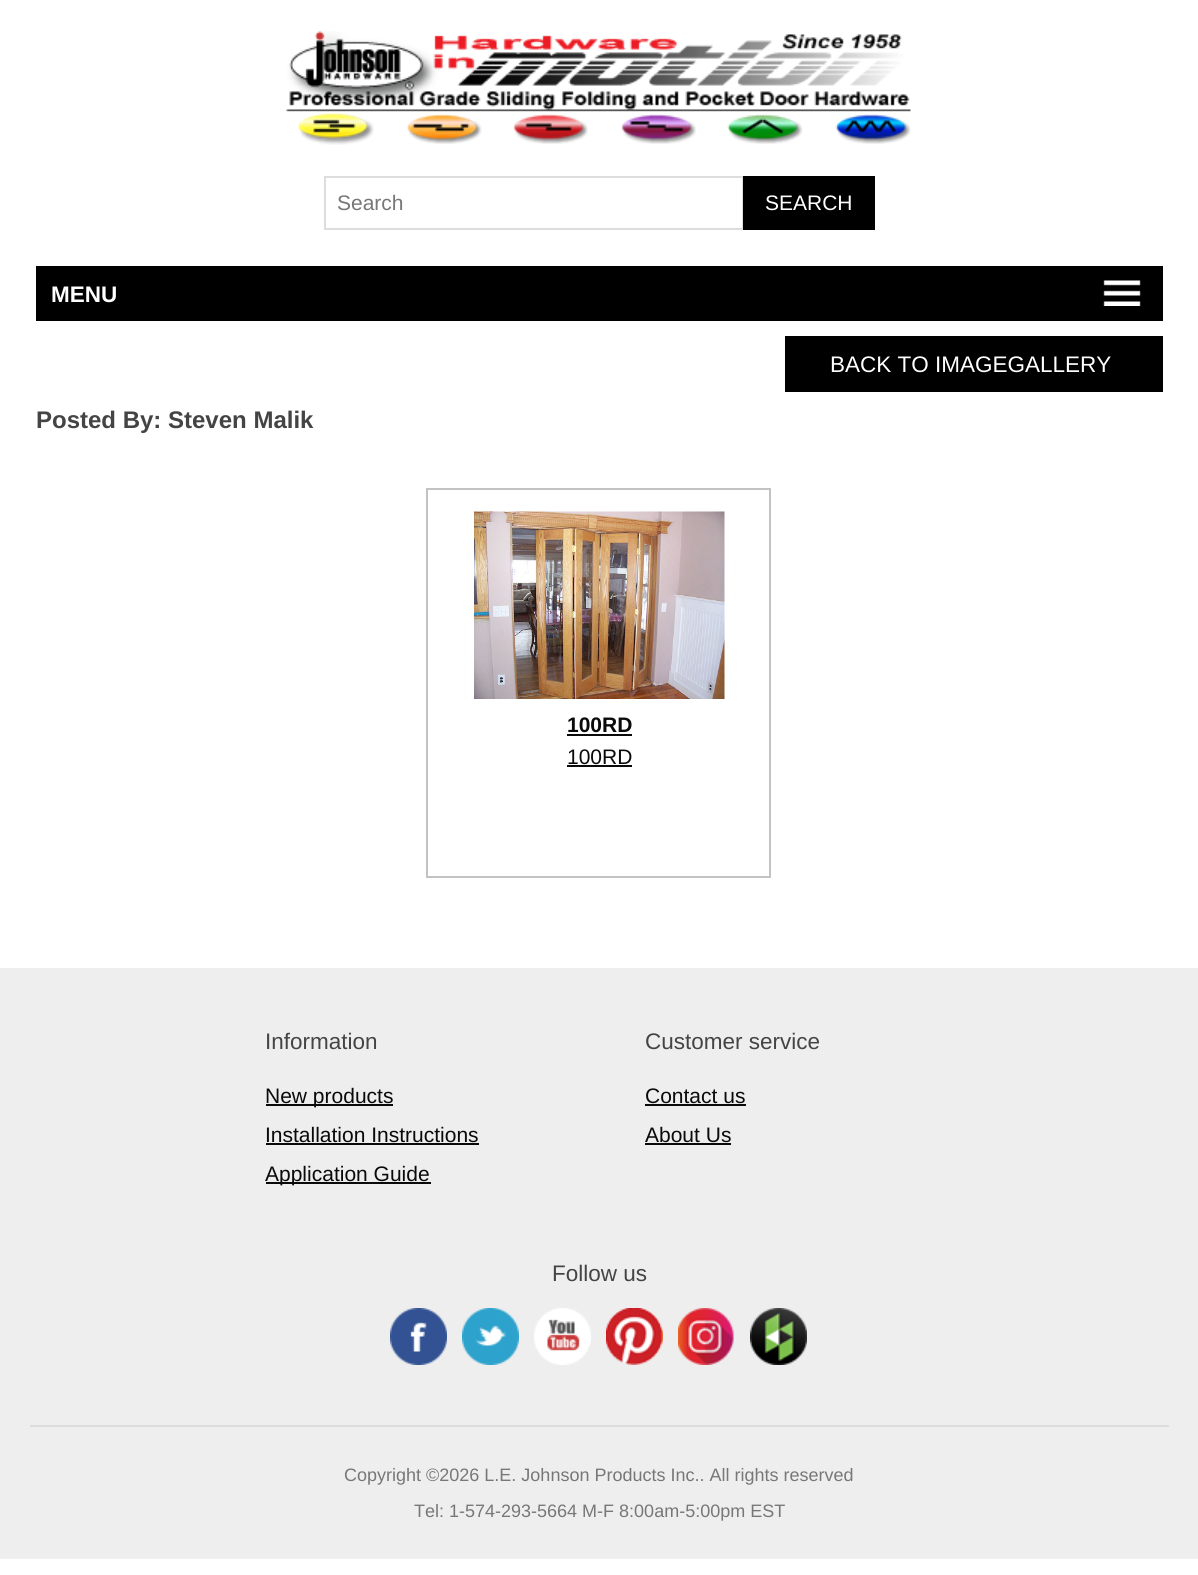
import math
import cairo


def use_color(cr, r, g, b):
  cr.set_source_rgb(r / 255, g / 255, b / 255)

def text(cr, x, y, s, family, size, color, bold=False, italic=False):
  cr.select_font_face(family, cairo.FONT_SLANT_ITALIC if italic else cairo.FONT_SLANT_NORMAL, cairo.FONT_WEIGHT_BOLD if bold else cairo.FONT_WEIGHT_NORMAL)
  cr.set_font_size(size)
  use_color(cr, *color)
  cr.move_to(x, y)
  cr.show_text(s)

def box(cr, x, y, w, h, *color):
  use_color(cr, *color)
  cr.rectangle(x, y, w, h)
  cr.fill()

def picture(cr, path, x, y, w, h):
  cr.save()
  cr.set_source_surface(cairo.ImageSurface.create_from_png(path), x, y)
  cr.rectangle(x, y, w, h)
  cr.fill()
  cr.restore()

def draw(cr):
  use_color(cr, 255, 255, 255)
  cr.paint()
  picture(cr, "img_01.png", 286, 31, 625, 81)
  picture(cr, "img_02.png", 298, 113, 76, 32)
  picture(cr, "img_03.png", 406, 114, 76, 30)
  picture(cr, "img_04.png", 513, 114, 75, 30)
  picture(cr, "img_05.png", 621, 114, 75, 30)
  picture(cr, "img_06.png", 727, 114, 76, 30)
  picture(cr, "img_07.png", 835, 114, 76, 30)
  cr.rectangle(325, 177, 418, 52)
  use_color(cr, 221, 221, 221)
  cr.stroke()
  box(cr, 743, 176, 132, 54, 0, 0, 0)
  box(cr, 36, 266, 1127, 55, 0, 0, 0)
  picture(cr, "img_08.png", 1103, 280, 38, 26)
  box(cr, 785, 336, 378, 56, 0, 0, 0)
  cr.rectangle(427, 489, 343, 388)
  use_color(cr, 195, 195, 195)
  cr.stroke()
  picture(cr, "img_09.png", 474, 511, 251, 188)
  box(cr, 567, 734, 65, 2, 10, 10, 10)
  box(cr, 567, 765, 65, 2, 10, 10, 10)
  box(cr, 0, 968, 1198, 591, 238, 238, 238)
  box(cr, 30, 1425, 1139, 2, 221, 221, 221)
  box(cr, 266, 1104, 127, 2, 10, 10, 10)
  box(cr, 266, 1143, 213, 2, 10, 10, 10)
  box(cr, 266, 1182, 165, 2, 10, 10, 10)
  box(cr, 645, 1104, 101, 2, 10, 10, 10)
  box(cr, 645, 1143, 86, 2, 10, 10, 10)
  picture(cr, "img_10.png", 390, 1308, 57, 57)
  picture(cr, "img_11.png", 462, 1308, 57, 57)
  picture(cr, "img_12.png", 534, 1308, 57, 57)
  picture(cr, "img_13.png", 606, 1308, 57, 57)
  picture(cr, "img_14.png", 678, 1308, 56, 57)
  picture(cr, "img_15.png", 750, 1308, 57, 57)
  text(cr, 337, 210, "Search", "Liberation Sans", 21, (119, 119, 119))
  text(cr, 765, 210, "SEARCH", "Liberation Sans", 21, (255, 255, 255))
  text(cr, 51, 302, "MENU", "Liberation Sans", 22.5, (255, 255, 255), bold=True)
  text(cr, 830, 372, "BACK TO IMAGEGALLERY", "Liberation Sans", 22.5, (255, 255, 255))
  text(cr, 36, 428, "Posted By: Steven Malik", "Liberation Sans", 24, (68, 68, 68), bold=True)
  text(cr, 567, 732, "100RD", "Liberation Sans", 21, (10, 10, 10), bold=True)
  text(cr, 567, 764, "100RD", "Liberation Sans", 21, (10, 10, 10))
  text(cr, 265, 1049, "Information", "Liberation Sans", 22.5, (68, 68, 68))
  text(cr, 265, 1103, "New products", "Liberation Sans", 21, (10, 10, 10))
  text(cr, 265, 1142, "Installation Instructions", "Liberation Sans", 21, (10, 10, 10))
  text(cr, 265, 1181, "Application Guide", "Liberation Sans", 21, (10, 10, 10))
  text(cr, 645, 1049, "Customer service", "Liberation Sans", 22.5, (68, 68, 68))
  text(cr, 645, 1103, "Contact us", "Liberation Sans", 21, (10, 10, 10))
  text(cr, 645, 1142, "About Us", "Liberation Sans", 21, (10, 10, 10))
  text(cr, 552, 1281, "Follow us", "Liberation Sans", 22.5, (68, 68, 68))
  text(cr, 344, 1481, "Copyright ©2026 L.E. Johnson Products Inc.. All rights reserved", "Liberation Sans", 18, (119, 119, 119))
  text(cr, 414, 1517, "Tel: 1-574-293-5664 M-F 8:00am-5:00pm EST", "Liberation Sans", 18, (119, 119, 119))


surface = cairo.ImageSurface(cairo.FORMAT_RGB24, 1198, 1575)
cr = cairo.Context(surface)
options = cairo.FontOptions()
options.set_hint_metrics(cairo.HINT_METRICS_OFF)
options.set_hint_style(cairo.HINT_STYLE_NONE)
cr.set_font_options(options)
cr.set_miter_limit(4)
draw(cr)
surface.write_to_png("out.png")
